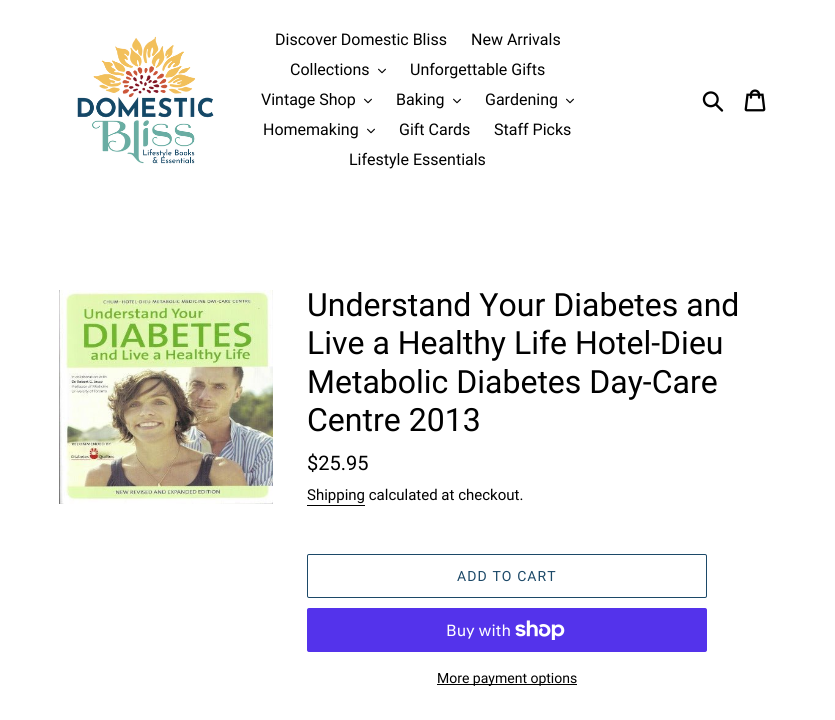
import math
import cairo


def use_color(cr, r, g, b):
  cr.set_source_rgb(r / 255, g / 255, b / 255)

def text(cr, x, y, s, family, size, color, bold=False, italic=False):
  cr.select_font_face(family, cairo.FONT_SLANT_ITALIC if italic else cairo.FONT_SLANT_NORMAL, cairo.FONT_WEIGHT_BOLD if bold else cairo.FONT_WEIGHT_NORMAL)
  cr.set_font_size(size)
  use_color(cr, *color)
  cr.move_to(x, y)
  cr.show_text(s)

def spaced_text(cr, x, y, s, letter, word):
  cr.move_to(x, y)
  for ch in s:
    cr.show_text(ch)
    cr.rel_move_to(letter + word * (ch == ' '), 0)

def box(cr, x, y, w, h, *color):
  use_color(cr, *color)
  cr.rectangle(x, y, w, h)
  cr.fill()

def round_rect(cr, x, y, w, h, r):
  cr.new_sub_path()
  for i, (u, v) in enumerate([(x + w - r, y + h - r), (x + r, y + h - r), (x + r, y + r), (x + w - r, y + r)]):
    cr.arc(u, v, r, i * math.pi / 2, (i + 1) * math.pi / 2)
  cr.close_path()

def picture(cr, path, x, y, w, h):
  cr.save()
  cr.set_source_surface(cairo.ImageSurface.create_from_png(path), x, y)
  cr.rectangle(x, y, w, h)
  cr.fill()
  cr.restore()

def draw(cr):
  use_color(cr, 255, 255, 255)
  cr.paint()
  picture(cr, "img_01.png", 77, 36, 137, 128)
  picture(cr, "img_02.png", 378, 68, 8, 6)
  picture(cr, "img_02.png", 364, 98, 8, 6)
  picture(cr, "img_02.png", 453, 98, 8, 6)
  picture(cr, "img_02.png", 566, 98, 8, 6)
  picture(cr, "img_02.png", 367, 128, 8, 6)
  picture(cr, "img_03.png", 702, 91, 22, 21)
  picture(cr, "img_04.png", 744, 89, 22, 23)
  picture(cr, "img_05.png", 59, 290, 214, 214)
  box(cr, 307, 505, 58, 1, 0, 0, 0)
  round_rect(cr, 307.5, 554.5, 399, 43, 1.5)
  use_color(cr, 28, 73, 104)
  cr.set_line_width(1)
  cr.stroke()
  use_color(cr, 84, 51, 235)
  round_rect(cr, 307, 608, 400, 44, 2)
  cr.fill()
  picture(cr, "img_06.png", 515, 620, 50, 20)
  box(cr, 437, 684, 140, 1, 0, 0, 0)
  text(cr, 275, 45, "Discover Domestic Bliss", "Roboto", 16, (0, 0, 0))
  text(cr, 471, 45, "New Arrivals", "Roboto", 16, (0, 0, 0))
  text(cr, 290, 75, "Collections", "Roboto", 16, (0, 0, 0))
  text(cr, 410, 75, "Unforgettable Gifts", "Roboto", 16, (0, 0, 0))
  text(cr, 261, 105, "Vintage Shop", "Roboto", 16, (0, 0, 0))
  text(cr, 396, 105, "Baking", "Roboto", 16, (0, 0, 0))
  text(cr, 485, 105, "Gardening", "Roboto", 16, (0, 0, 0))
  text(cr, 263, 135, "Homemaking", "Roboto", 16, (0, 0, 0))
  text(cr, 399, 135, "Gift Cards", "Roboto", 16, (0, 0, 0))
  text(cr, 494, 135, "Staff Picks", "Roboto", 16, (0, 0, 0))
  text(cr, 349, 165, "Lifestyle Essentials", "Roboto", 16, (0, 0, 0))
  text(cr, 307, 316, "Understand Your Diabetes and", "Roboto", 32, (0, 0, 0))
  text(cr, 307, 354, "Live a Healthy Life Hotel-Dieu", "Roboto", 32, (0, 0, 0))
  text(cr, 307, 393, "Metabolic Diabetes Day-Care", "Roboto", 32, (0, 0, 0))
  text(cr, 307, 431, "Centre 2013", "Roboto", 32, (0, 0, 0))
  text(cr, 307, 470, "$25.95", "Roboto", 20, (0, 0, 0))
  text(cr, 307, 500, "Shipping calculated at checkout.", "Roboto", 15, (0, 0, 0))
  cr.set_font_size(14)
  use_color(cr, 28, 73, 104)
  spaced_text(cr, 457, 581, "ADD TO CART", 1.1, 0)
  text(cr, 446, 636, "Buy with", "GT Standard", 16, (255, 255, 255))
  text(cr, 437, 683, "More payment options", "Roboto", 14, (0, 0, 0))


surface = cairo.ImageSurface(cairo.FORMAT_RGB24, 835, 720)
cr = cairo.Context(surface)
options = cairo.FontOptions()
options.set_hint_metrics(cairo.HINT_METRICS_OFF)
options.set_hint_style(cairo.HINT_STYLE_NONE)
cr.set_font_options(options)
cr.set_miter_limit(4)
draw(cr)
surface.write_to_png("out.png")
